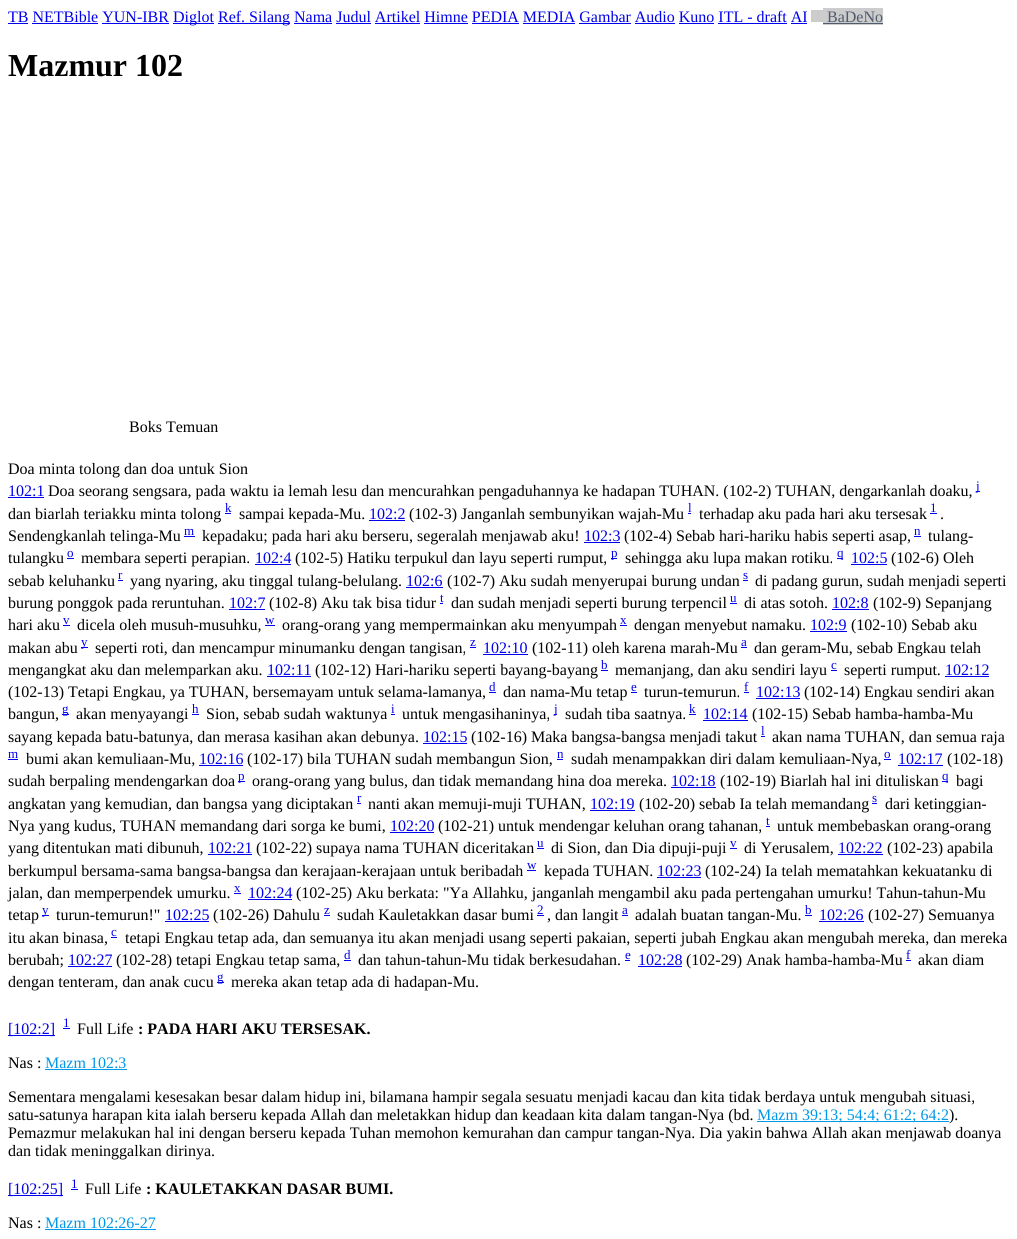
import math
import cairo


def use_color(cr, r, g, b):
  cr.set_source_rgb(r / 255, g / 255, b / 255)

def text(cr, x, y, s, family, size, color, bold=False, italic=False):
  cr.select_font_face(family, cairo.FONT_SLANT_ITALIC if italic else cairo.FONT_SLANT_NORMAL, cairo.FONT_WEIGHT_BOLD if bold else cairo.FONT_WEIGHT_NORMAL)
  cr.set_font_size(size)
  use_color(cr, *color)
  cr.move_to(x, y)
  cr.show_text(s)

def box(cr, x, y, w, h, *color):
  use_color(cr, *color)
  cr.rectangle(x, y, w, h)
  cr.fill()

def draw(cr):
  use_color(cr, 255, 255, 255)
  cr.paint()
  box(cr, 8, 23, 20, 1, 0, 0, 238)
  box(cr, 173, 23, 41, 1, 0, 0, 238)
  box(cr, 218, 23, 72, 1, 0, 0, 238)
  box(cr, 811, 10, 12, 12, 204, 204, 204)
  box(cr, 823, 8, 60, 17, 204, 204, 204)
  box(cr, 823, 23, 60, 1, 81, 91, 110)
  box(cr, 32, 23, 66, 1, 0, 0, 238)
  box(cr, 102, 23, 67, 1, 0, 0, 238)
  box(cr, 294, 23, 38, 1, 0, 0, 238)
  box(cr, 336, 23, 35, 1, 0, 0, 238)
  box(cr, 375, 23, 45, 1, 0, 0, 238)
  box(cr, 424, 23, 44, 1, 0, 0, 238)
  box(cr, 472, 23, 47, 1, 0, 0, 238)
  box(cr, 523, 23, 52, 1, 0, 0, 238)
  box(cr, 579, 23, 52, 1, 0, 0, 238)
  box(cr, 635, 23, 40, 1, 0, 0, 238)
  box(cr, 679, 23, 35, 1, 0, 0, 238)
  box(cr, 718, 23, 69, 1, 0, 0, 238)
  box(cr, 791, 23, 16, 1, 0, 0, 238)
  box(cr, 8, 497, 36, 1, 0, 0, 238)
  box(cr, 976, 491, 4, 1, 0, 0, 238)
  box(cr, 225, 513, 6, 1, 0, 0, 238)
  box(cr, 369, 520, 36, 1, 0, 0, 238)
  box(cr, 688, 513, 3, 1, 0, 0, 238)
  box(cr, 930, 513, 7, 1, 0, 0, 238)
  box(cr, 184, 536, 11, 1, 0, 0, 238)
  box(cr, 584, 542, 36, 1, 0, 0, 238)
  box(cr, 914, 536, 7, 1, 0, 0, 238)
  box(cr, 67, 558, 7, 1, 0, 0, 238)
  box(cr, 255, 564, 36, 1, 0, 0, 238)
  box(cr, 611, 558, 6, 1, 0, 0, 238)
  box(cr, 837, 558, 6, 1, 0, 0, 238)
  box(cr, 851, 564, 36, 1, 0, 0, 238)
  box(cr, 118, 580, 5, 1, 0, 0, 238)
  box(cr, 406, 587, 37, 1, 0, 0, 238)
  box(cr, 743, 580, 5, 1, 0, 0, 238)
  box(cr, 229, 609, 36, 1, 0, 0, 238)
  box(cr, 440, 603, 3, 1, 0, 0, 238)
  box(cr, 730, 603, 7, 1, 0, 0, 238)
  box(cr, 832, 609, 37, 1, 0, 0, 238)
  box(cr, 63, 625, 7, 1, 0, 0, 238)
  box(cr, 265, 625, 10, 1, 0, 0, 238)
  box(cr, 620, 625, 7, 1, 0, 0, 238)
  box(cr, 810, 631, 37, 1, 0, 0, 238)
  box(cr, 81, 647, 7, 1, 0, 0, 238)
  box(cr, 470, 647, 6, 1, 0, 0, 238)
  box(cr, 483, 654, 45, 1, 0, 0, 238)
  box(cr, 741, 647, 6, 1, 0, 0, 238)
  box(cr, 267, 676, 44, 1, 0, 0, 238)
  box(cr, 601, 670, 7, 1, 0, 0, 238)
  box(cr, 831, 670, 6, 1, 0, 0, 238)
  box(cr, 945, 676, 44, 1, 0, 0, 238)
  box(cr, 489, 692, 7, 1, 0, 0, 238)
  box(cr, 631, 692, 6, 1, 0, 0, 238)
  box(cr, 744, 692, 5, 1, 0, 0, 238)
  box(cr, 756, 698, 44, 1, 0, 0, 238)
  box(cr, 62, 714, 7, 1, 0, 0, 238)
  box(cr, 192, 714, 7, 1, 0, 0, 238)
  box(cr, 391, 714, 4, 1, 0, 0, 238)
  box(cr, 554, 714, 3, 1, 0, 0, 238)
  box(cr, 689, 714, 7, 1, 0, 0, 238)
  box(cr, 703, 720, 45, 1, 0, 0, 238)
  box(cr, 423, 743, 44, 1, 0, 0, 238)
  box(cr, 761, 736, 4, 1, 0, 0, 238)
  box(cr, 8, 759, 10, 1, 0, 0, 238)
  box(cr, 199, 765, 44, 1, 0, 0, 238)
  box(cr, 557, 759, 6, 1, 0, 0, 238)
  box(cr, 884, 759, 7, 1, 0, 0, 238)
  box(cr, 898, 765, 45, 1, 0, 0, 238)
  box(cr, 238, 781, 7, 1, 0, 0, 238)
  box(cr, 671, 787, 45, 1, 0, 0, 238)
  box(cr, 942, 781, 6, 1, 0, 0, 238)
  box(cr, 357, 803, 4, 1, 0, 0, 238)
  box(cr, 590, 810, 45, 1, 0, 0, 238)
  box(cr, 872, 803, 5, 1, 0, 0, 238)
  box(cr, 390, 832, 44, 1, 0, 0, 238)
  box(cr, 766, 826, 4, 1, 0, 0, 238)
  box(cr, 208, 854, 44, 1, 0, 0, 238)
  box(cr, 537, 848, 7, 1, 0, 0, 238)
  box(cr, 730, 848, 7, 1, 0, 0, 238)
  box(cr, 838, 854, 45, 1, 0, 0, 238)
  box(cr, 527, 870, 9, 1, 0, 0, 238)
  box(cr, 657, 877, 44, 1, 0, 0, 238)
  box(cr, 234, 893, 7, 1, 0, 0, 238)
  box(cr, 248, 899, 44, 1, 0, 0, 238)
  box(cr, 42, 915, 7, 1, 0, 0, 238)
  box(cr, 165, 921, 44, 1, 0, 0, 238)
  box(cr, 324, 915, 6, 1, 0, 0, 238)
  box(cr, 537, 915, 7, 1, 0, 0, 238)
  box(cr, 622, 915, 6, 1, 0, 0, 238)
  box(cr, 805, 915, 7, 1, 0, 0, 238)
  box(cr, 819, 921, 45, 1, 0, 0, 238)
  box(cr, 111, 937, 6, 1, 0, 0, 238)
  box(cr, 68, 966, 44, 1, 0, 0, 238)
  box(cr, 344, 960, 7, 1, 0, 0, 238)
  box(cr, 625, 960, 5, 1, 0, 0, 238)
  box(cr, 638, 966, 44, 1, 0, 0, 238)
  box(cr, 906, 960, 5, 1, 0, 0, 238)
  box(cr, 217, 982, 7, 1, 0, 0, 238)
  box(cr, 8, 1035, 47, 1, 0, 0, 238)
  box(cr, 63, 1028, 7, 1, 0, 0, 238)
  box(cr, 45, 1069, 82, 1, 0, 152, 232)
  box(cr, 757, 1121, 192, 1, 0, 152, 232)
  box(cr, 8, 1195, 55, 1, 0, 0, 238)
  box(cr, 71, 1189, 7, 1, 0, 0, 238)
  box(cr, 45, 1229, 111, 1, 0, 152, 232)
  text(cr, 8, 22, "TB NETBible YUN-IBR", "Liberation Serif", 16, (0, 0, 238))
  text(cr, 173, 22, "Diglot", "Liberation Serif", 16, (0, 0, 238))
  text(cr, 218, 22, "Ref. Silang Nama Judul Artikel Himne PEDIA MEDIA Gambar Audio Kuno ITL - draft AI", "Liberation Serif", 16, (0, 0, 238))
  text(cr, 827, 22, "BaDeNo", "Liberation Serif", 16, (81, 91, 110))
  text(cr, 8, 76, "Mazmur 102", "Liberation Serif", 32, (0, 0, 0), bold=True)
  text(cr, 129, 432, "Boks Temuan", "Liberation Serif", 16, (0, 0, 0))
  text(cr, 8, 474, "Doa minta tolong dan doa untuk Sion", "Liberation Serif", 16, (0, 0, 0))
  text(cr, 8, 496, "102:1", "Liberation Serif", 16, (0, 0, 238))
  text(cr, 48, 496, "Doa seorang sengsara, pada waktu ia lemah lesu dan mencurahkan pengaduhannya ke hadapan TUHAN. (102-2) TUHAN, dengarkanlah doaku,", "Liberation Serif", 16, (0, 0, 0))
  text(cr, 976, 490, "j", "Liberation Serif", 13, (0, 0, 238))
  text(cr, 8, 519, "dan biarlah teriakku minta tolong", "Liberation Serif", 16, (0, 0, 0))
  text(cr, 225, 512, "k", "Liberation Serif", 13, (0, 0, 238))
  text(cr, 239, 519, "sampai kepada-Mu.", "Liberation Serif", 16, (0, 0, 0))
  text(cr, 369, 519, "102:2", "Liberation Serif", 16, (0, 0, 238))
  text(cr, 409, 519, "(102-3) Janganlah sembunyikan wajah-Mu", "Liberation Serif", 16, (0, 0, 0))
  text(cr, 688, 512, "l", "Liberation Serif", 13, (0, 0, 238))
  text(cr, 699, 519, "terhadap aku pada hari aku tersesak", "Liberation Serif", 16, (0, 0, 0))
  text(cr, 930, 512, "1", "Liberation Serif", 13, (0, 0, 238))
  text(cr, 940, 519, ".", "Liberation Serif", 16, (0, 0, 0))
  text(cr, 8, 541, "Sendengkanlah telinga-Mu", "Liberation Serif", 16, (0, 0, 0))
  text(cr, 184, 535, "m", "Liberation Serif", 13, (0, 0, 238))
  text(cr, 202, 541, "kepadaku; pada hari aku berseru, segeralah menjawab aku!", "Liberation Serif", 16, (0, 0, 0))
  text(cr, 584, 541, "102:3", "Liberation Serif", 16, (0, 0, 238))
  text(cr, 624, 541, "(102-4) Sebab hari-hariku habis seperti asap,", "Liberation Serif", 16, (0, 0, 0))
  text(cr, 914, 535, "n", "Liberation Serif", 13, (0, 0, 238))
  text(cr, 928, 541, "tulang-", "Liberation Serif", 16, (0, 0, 0))
  text(cr, 8, 563, "tulangku", "Liberation Serif", 16, (0, 0, 0))
  text(cr, 67, 557, "o", "Liberation Serif", 13, (0, 0, 238))
  text(cr, 81, 563, "membara seperti perapian.", "Liberation Serif", 16, (0, 0, 0))
  text(cr, 255, 563, "102:4", "Liberation Serif", 16, (0, 0, 238))
  text(cr, 295, 563, "(102-5) Hatiku terpukul dan layu seperti rumput,", "Liberation Serif", 16, (0, 0, 0))
  text(cr, 611, 557, "p", "Liberation Serif", 13, (0, 0, 238))
  text(cr, 625, 563, "sehingga aku lupa makan rotiku.", "Liberation Serif", 16, (0, 0, 0))
  text(cr, 837, 557, "q", "Liberation Serif", 13, (0, 0, 238))
  text(cr, 851, 563, "102:5", "Liberation Serif", 16, (0, 0, 238))
  text(cr, 891, 563, "(102-6) Oleh", "Liberation Serif", 16, (0, 0, 0))
  text(cr, 8, 586, "sebab keluhanku", "Liberation Serif", 16, (0, 0, 0))
  text(cr, 118, 579, "r", "Liberation Serif", 13, (0, 0, 238))
  text(cr, 130, 586, "yang nyaring, aku tinggal tulang-belulang.", "Liberation Serif", 16, (0, 0, 0))
  text(cr, 406, 586, "102:6", "Liberation Serif", 16, (0, 0, 238))
  text(cr, 447, 586, "(102-7) Aku sudah menyerupai burung undan", "Liberation Serif", 16, (0, 0, 0))
  text(cr, 743, 579, "s", "Liberation Serif", 13, (0, 0, 238))
  text(cr, 755, 586, "di padang gurun, sudah menjadi seperti", "Liberation Serif", 16, (0, 0, 0))
  text(cr, 8, 608, "burung ponggok pada reruntuhan.", "Liberation Serif", 16, (0, 0, 0))
  text(cr, 229, 608, "102:7", "Liberation Serif", 16, (0, 0, 238))
  text(cr, 269, 608, "(102-8) Aku tak bisa tidur", "Liberation Serif", 16, (0, 0, 0))
  text(cr, 440, 602, "t", "Liberation Serif", 13, (0, 0, 238))
  text(cr, 451, 608, "dan sudah menjadi seperti burung terpencil", "Liberation Serif", 16, (0, 0, 0))
  text(cr, 730, 602, "u", "Liberation Serif", 13, (0, 0, 238))
  text(cr, 744, 608, "di atas sotoh.", "Liberation Serif", 16, (0, 0, 0))
  text(cr, 832, 608, "102:8", "Liberation Serif", 16, (0, 0, 238))
  text(cr, 873, 608, "(102-9) Sepanjang", "Liberation Serif", 16, (0, 0, 0))
  text(cr, 8, 630, "hari aku", "Liberation Serif", 16, (0, 0, 0))
  text(cr, 63, 624, "v", "Liberation Serif", 13, (0, 0, 238))
  text(cr, 77, 630, "dicela oleh musuh-musuhku,", "Liberation Serif", 16, (0, 0, 0))
  text(cr, 265, 624, "w", "Liberation Serif", 13, (0, 0, 238))
  text(cr, 282, 630, "orang-orang yang mempermainkan aku menyumpah", "Liberation Serif", 16, (0, 0, 0))
  text(cr, 620, 624, "x", "Liberation Serif", 13, (0, 0, 238))
  text(cr, 634, 630, "dengan menyebut namaku.", "Liberation Serif", 16, (0, 0, 0))
  text(cr, 810, 630, "102:9", "Liberation Serif", 16, (0, 0, 238))
  text(cr, 851, 630, "(102-10) Sebab aku", "Liberation Serif", 16, (0, 0, 0))
  text(cr, 8, 653, "makan abu", "Liberation Serif", 16, (0, 0, 0))
  text(cr, 81, 646, "y", "Liberation Serif", 13, (0, 0, 238))
  text(cr, 95, 653, "seperti roti, dan mencampur minumanku dengan tangisan,", "Liberation Serif", 16, (0, 0, 0))
  text(cr, 470, 646, "z", "Liberation Serif", 13, (0, 0, 238))
  text(cr, 483, 653, "102:10", "Liberation Serif", 16, (0, 0, 238))
  text(cr, 532, 653, "(102-11) oleh karena marah-Mu", "Liberation Serif", 16, (0, 0, 0))
  text(cr, 741, 646, "a", "Liberation Serif", 13, (0, 0, 238))
  text(cr, 754, 653, "dan geram-Mu, sebab Engkau telah", "Liberation Serif", 16, (0, 0, 0))
  text(cr, 8, 675, "mengangkat aku dan melemparkan aku.", "Liberation Serif", 16, (0, 0, 0))
  text(cr, 267, 675, "102:11", "Liberation Serif", 16, (0, 0, 238))
  text(cr, 315, 675, "(102-12) Hari-hariku seperti bayang-bayang", "Liberation Serif", 16, (0, 0, 0))
  text(cr, 601, 669, "b", "Liberation Serif", 13, (0, 0, 238))
  text(cr, 615, 675, "memanjang, dan aku sendiri layu", "Liberation Serif", 16, (0, 0, 0))
  text(cr, 831, 669, "c", "Liberation Serif", 13, (0, 0, 238))
  text(cr, 844, 675, "seperti rumput.", "Liberation Serif", 16, (0, 0, 0))
  text(cr, 945, 675, "102:12", "Liberation Serif", 16, (0, 0, 238))
  text(cr, 8, 697, "(102-13) Tetapi Engkau, ya TUHAN, bersemayam untuk selama-lamanya,", "Liberation Serif", 16, (0, 0, 0))
  text(cr, 489, 691, "d", "Liberation Serif", 13, (0, 0, 238))
  text(cr, 503, 697, "dan nama-Mu tetap", "Liberation Serif", 16, (0, 0, 0))
  text(cr, 631, 691, "e", "Liberation Serif", 13, (0, 0, 238))
  text(cr, 644, 697, "turun-temurun.", "Liberation Serif", 16, (0, 0, 0))
  text(cr, 744, 691, "f", "Liberation Serif", 13, (0, 0, 238))
  text(cr, 756, 697, "102:13", "Liberation Serif", 16, (0, 0, 238))
  text(cr, 804, 697, "(102-14) Engkau sendiri akan", "Liberation Serif", 16, (0, 0, 0))
  text(cr, 8, 719, "bangun,", "Liberation Serif", 16, (0, 0, 0))
  text(cr, 62, 713, "g", "Liberation Serif", 13, (0, 0, 238))
  text(cr, 76, 719, "akan menyayangi", "Liberation Serif", 16, (0, 0, 0))
  text(cr, 192, 713, "h", "Liberation Serif", 13, (0, 0, 238))
  text(cr, 206, 719, "Sion, sebab sudah waktunya", "Liberation Serif", 16, (0, 0, 0))
  text(cr, 391, 713, "i", "Liberation Serif", 13, (0, 0, 238))
  text(cr, 402, 719, "untuk mengasihaninya,", "Liberation Serif", 16, (0, 0, 0))
  text(cr, 554, 713, "j", "Liberation Serif", 13, (0, 0, 238))
  text(cr, 565, 719, "sudah tiba saatnya.", "Liberation Serif", 16, (0, 0, 0))
  text(cr, 689, 713, "k", "Liberation Serif", 13, (0, 0, 238))
  text(cr, 703, 719, "102:14", "Liberation Serif", 16, (0, 0, 238))
  text(cr, 752, 719, "(102-15) Sebab hamba-hamba-Mu", "Liberation Serif", 16, (0, 0, 0))
  text(cr, 8, 742, "sayang kepada batu-batunya, dan merasa kasihan akan debunya.", "Liberation Serif", 16, (0, 0, 0))
  text(cr, 423, 742, "102:15", "Liberation Serif", 16, (0, 0, 238))
  text(cr, 471, 742, "(102-16) Maka bangsa-bangsa menjadi takut", "Liberation Serif", 16, (0, 0, 0))
  text(cr, 761, 735, "l", "Liberation Serif", 13, (0, 0, 238))
  text(cr, 772, 742, "akan nama TUHAN, dan semua raja", "Liberation Serif", 16, (0, 0, 0))
  text(cr, 8, 758, "m", "Liberation Serif", 13, (0, 0, 238))
  text(cr, 26, 764, "bumi akan kemuliaan-Mu,", "Liberation Serif", 16, (0, 0, 0))
  text(cr, 199, 764, "102:16", "Liberation Serif", 16, (0, 0, 238))
  text(cr, 247, 764, "(102-17) bila TUHAN sudah membangun Sion,", "Liberation Serif", 16, (0, 0, 0))
  text(cr, 557, 758, "n", "Liberation Serif", 13, (0, 0, 238))
  text(cr, 571, 764, "sudah menampakkan diri dalam kemuliaan-Nya,", "Liberation Serif", 16, (0, 0, 0))
  text(cr, 884, 758, "o", "Liberation Serif", 13, (0, 0, 238))
  text(cr, 898, 764, "102:17", "Liberation Serif", 16, (0, 0, 238))
  text(cr, 947, 764, "(102-18)", "Liberation Serif", 16, (0, 0, 0))
  text(cr, 8, 786, "sudah berpaling mendengarkan doa", "Liberation Serif", 16, (0, 0, 0))
  text(cr, 238, 780, "p", "Liberation Serif", 13, (0, 0, 238))
  text(cr, 252, 786, "orang-orang yang bulus, dan tidak memandang hina doa mereka.", "Liberation Serif", 16, (0, 0, 0))
  text(cr, 671, 786, "102:18", "Liberation Serif", 16, (0, 0, 238))
  text(cr, 720, 786, "(102-19) Biarlah hal ini dituliskan", "Liberation Serif", 16, (0, 0, 0))
  text(cr, 942, 780, "q", "Liberation Serif", 13, (0, 0, 238))
  text(cr, 956, 786, "bagi", "Liberation Serif", 16, (0, 0, 0))
  text(cr, 8, 809, "angkatan yang kemudian, dan bangsa yang diciptakan", "Liberation Serif", 16, (0, 0, 0))
  text(cr, 357, 802, "r", "Liberation Serif", 13, (0, 0, 238))
  text(cr, 368, 809, "nanti akan memuji-muji TUHAN,", "Liberation Serif", 16, (0, 0, 0))
  text(cr, 590, 809, "102:19", "Liberation Serif", 16, (0, 0, 238))
  text(cr, 639, 809, "(102-20) sebab Ia telah memandang", "Liberation Serif", 16, (0, 0, 0))
  text(cr, 872, 802, "s", "Liberation Serif", 13, (0, 0, 238))
  text(cr, 885, 809, "dari ketinggian-", "Liberation Serif", 16, (0, 0, 0))
  text(cr, 8, 831, "Nya yang kudus, TUHAN memandang dari sorga ke bumi,", "Liberation Serif", 16, (0, 0, 0))
  text(cr, 390, 831, "102:20", "Liberation Serif", 16, (0, 0, 238))
  text(cr, 438, 831, "(102-21) untuk mendengar keluhan orang tahanan,", "Liberation Serif", 16, (0, 0, 0))
  text(cr, 766, 825, "t", "Liberation Serif", 13, (0, 0, 238))
  text(cr, 777, 831, "untuk membebaskan orang-orang", "Liberation Serif", 16, (0, 0, 0))
  text(cr, 8, 853, "yang ditentukan mati dibunuh,", "Liberation Serif", 16, (0, 0, 0))
  text(cr, 208, 853, "102:21", "Liberation Serif", 16, (0, 0, 238))
  text(cr, 256, 853, "(102-22) supaya nama TUHAN diceritakan", "Liberation Serif", 16, (0, 0, 0))
  text(cr, 537, 847, "u", "Liberation Serif", 13, (0, 0, 238))
  text(cr, 551, 853, "di Sion, dan Dia dipuji-puji", "Liberation Serif", 16, (0, 0, 0))
  text(cr, 730, 847, "v", "Liberation Serif", 13, (0, 0, 238))
  text(cr, 744, 853, "di Yerusalem,", "Liberation Serif", 16, (0, 0, 0))
  text(cr, 838, 853, "102:22", "Liberation Serif", 16, (0, 0, 238))
  text(cr, 887, 853, "(102-23) apabila", "Liberation Serif", 16, (0, 0, 0))
  text(cr, 8, 876, "berkumpul bersama-sama bangsa-bangsa dan kerajaan-kerajaan untuk beribadah", "Liberation Serif", 16, (0, 0, 0))
  text(cr, 527, 869, "w", "Liberation Serif", 13, (0, 0, 238))
  text(cr, 544, 876, "kepada TUHAN.", "Liberation Serif", 16, (0, 0, 0))
  text(cr, 657, 876, "102:23", "Liberation Serif", 16, (0, 0, 238))
  text(cr, 705, 876, "(102-24) Ia telah mematahkan kekuatanku di", "Liberation Serif", 16, (0, 0, 0))
  text(cr, 8, 898, "jalan, dan memperpendek umurku.", "Liberation Serif", 16, (0, 0, 0))
  text(cr, 234, 892, "x", "Liberation Serif", 13, (0, 0, 238))
  text(cr, 248, 898, "102:24", "Liberation Serif", 16, (0, 0, 238))
  text(cr, 296, 898, "(102-25) Aku berkata: \"Ya Allahku, janganlah mengambil aku pada pertengahan umurku! Tahun-tahun-Mu", "Liberation Serif", 16, (0, 0, 0))
  text(cr, 8, 920, "tetap", "Liberation Serif", 16, (0, 0, 0))
  text(cr, 42, 914, "y", "Liberation Serif", 13, (0, 0, 238))
  text(cr, 56, 920, "turun-temurun!\"", "Liberation Serif", 16, (0, 0, 0))
  text(cr, 165, 920, "102:25", "Liberation Serif", 16, (0, 0, 238))
  text(cr, 213, 920, "(102-26) Dahulu", "Liberation Serif", 16, (0, 0, 0))
  text(cr, 324, 914, "z", "Liberation Serif", 13, (0, 0, 238))
  text(cr, 337, 920, "sudah Kauletakkan dasar bumi", "Liberation Serif", 16, (0, 0, 0))
  text(cr, 537, 914, "2", "Liberation Serif", 13, (0, 0, 238))
  text(cr, 547, 920, ", dan langit", "Liberation Serif", 16, (0, 0, 0))
  text(cr, 622, 914, "a", "Liberation Serif", 13, (0, 0, 238))
  text(cr, 635, 920, "adalah buatan tangan-Mu.", "Liberation Serif", 16, (0, 0, 0))
  text(cr, 805, 914, "b", "Liberation Serif", 13, (0, 0, 238))
  text(cr, 819, 920, "102:26", "Liberation Serif", 16, (0, 0, 238))
  text(cr, 868, 920, "(102-27) Semuanya", "Liberation Serif", 16, (0, 0, 0))
  text(cr, 8, 943, "itu akan binasa,", "Liberation Serif", 16, (0, 0, 0))
  text(cr, 111, 936, "c", "Liberation Serif", 13, (0, 0, 238))
  text(cr, 125, 943, "tetapi Engkau tetap ada, dan semuanya itu akan menjadi usang seperti pakaian, seperti jubah Engkau akan mengubah mereka, dan mereka", "Liberation Serif", 16, (0, 0, 0))
  text(cr, 8, 965, "berubah;", "Liberation Serif", 16, (0, 0, 0))
  text(cr, 68, 965, "102:27", "Liberation Serif", 16, (0, 0, 238))
  text(cr, 116, 965, "(102-28) tetapi Engkau tetap sama,", "Liberation Serif", 16, (0, 0, 0))
  text(cr, 344, 959, "d", "Liberation Serif", 13, (0, 0, 238))
  text(cr, 358, 965, "dan tahun-tahun-Mu tidak berkesudahan.", "Liberation Serif", 16, (0, 0, 0))
  text(cr, 625, 959, "e", "Liberation Serif", 13, (0, 0, 238))
  text(cr, 638, 965, "102:28", "Liberation Serif", 16, (0, 0, 238))
  text(cr, 686, 965, "(102-29) Anak hamba-hamba-Mu", "Liberation Serif", 16, (0, 0, 0))
  text(cr, 906, 959, "f", "Liberation Serif", 13, (0, 0, 238))
  text(cr, 918, 965, "akan diam", "Liberation Serif", 16, (0, 0, 0))
  text(cr, 8, 987, "dengan tenteram, dan anak cucu", "Liberation Serif", 16, (0, 0, 0))
  text(cr, 217, 981, "g", "Liberation Serif", 13, (0, 0, 238))
  text(cr, 231, 987, "mereka akan tetap ada di hadapan-Mu.", "Liberation Serif", 16, (0, 0, 0))
  text(cr, 8, 1034, "[102:2]", "Liberation Serif", 16, (0, 0, 238))
  text(cr, 63, 1027, "1", "Liberation Serif", 13, (0, 0, 238))
  text(cr, 77, 1034, "Full Life", "Liberation Serif", 16, (0, 0, 0))
  text(cr, 138, 1034, ": PADA HARI AKU TERSESAK.", "Liberation Serif", 16, (0, 0, 0), bold=True)
  text(cr, 8, 1068, "Nas :", "Liberation Serif", 16, (0, 0, 0))
  text(cr, 45, 1068, "Mazm 102:3", "Liberation Serif", 16, (0, 152, 232))
  text(cr, 8, 1102, "Sementara mengalami kesesakan besar dalam hidup ini, bilamana hampir segala sesuatu menjadi kacau dan kita tidak berdaya untuk mengubah situasi,", "Liberation Serif", 16, (0, 0, 0))
  text(cr, 8, 1120, "satu-satunya harapan kita ialah berseru kepada Allah dan meletakkan hidup dan keadaan kita dalam tangan-Nya (bd.", "Liberation Serif", 16, (0, 0, 0))
  text(cr, 757, 1120, "Mazm 39:13; 54:4; 61:2; 64:2", "Liberation Serif", 16, (0, 152, 232))
  text(cr, 949, 1120, ").", "Liberation Serif", 16, (0, 0, 0))
  text(cr, 8, 1138, "Pemazmur melakukan hal ini dengan berseru kepada Tuhan memohon kemurahan dan campur tangan-Nya. Dia yakin bahwa Allah akan menjawab doanya", "Liberation Serif", 16, (0, 0, 0))
  text(cr, 8, 1156, "dan tidak meninggalkan dirinya.", "Liberation Serif", 16, (0, 0, 0))
  text(cr, 8, 1194, "[102:25]", "Liberation Serif", 16, (0, 0, 238))
  text(cr, 71, 1188, "1", "Liberation Serif", 13, (0, 0, 238))
  text(cr, 85, 1194, "Full Life", "Liberation Serif", 16, (0, 0, 0))
  text(cr, 146, 1194, ": KAULETAKKAN DASAR BUMI.", "Liberation Serif", 16, (0, 0, 0), bold=True)
  text(cr, 8, 1228, "Nas :", "Liberation Serif", 16, (0, 0, 0))
  text(cr, 45, 1228, "Mazm 102:26-27", "Liberation Serif", 16, (0, 152, 232))


surface = cairo.ImageSurface(cairo.FORMAT_RGB24, 1017, 1239)
cr = cairo.Context(surface)
options = cairo.FontOptions()
options.set_hint_metrics(cairo.HINT_METRICS_OFF)
options.set_hint_style(cairo.HINT_STYLE_NONE)
cr.set_font_options(options)
cr.set_miter_limit(4)
draw(cr)
surface.write_to_png("out.png")
